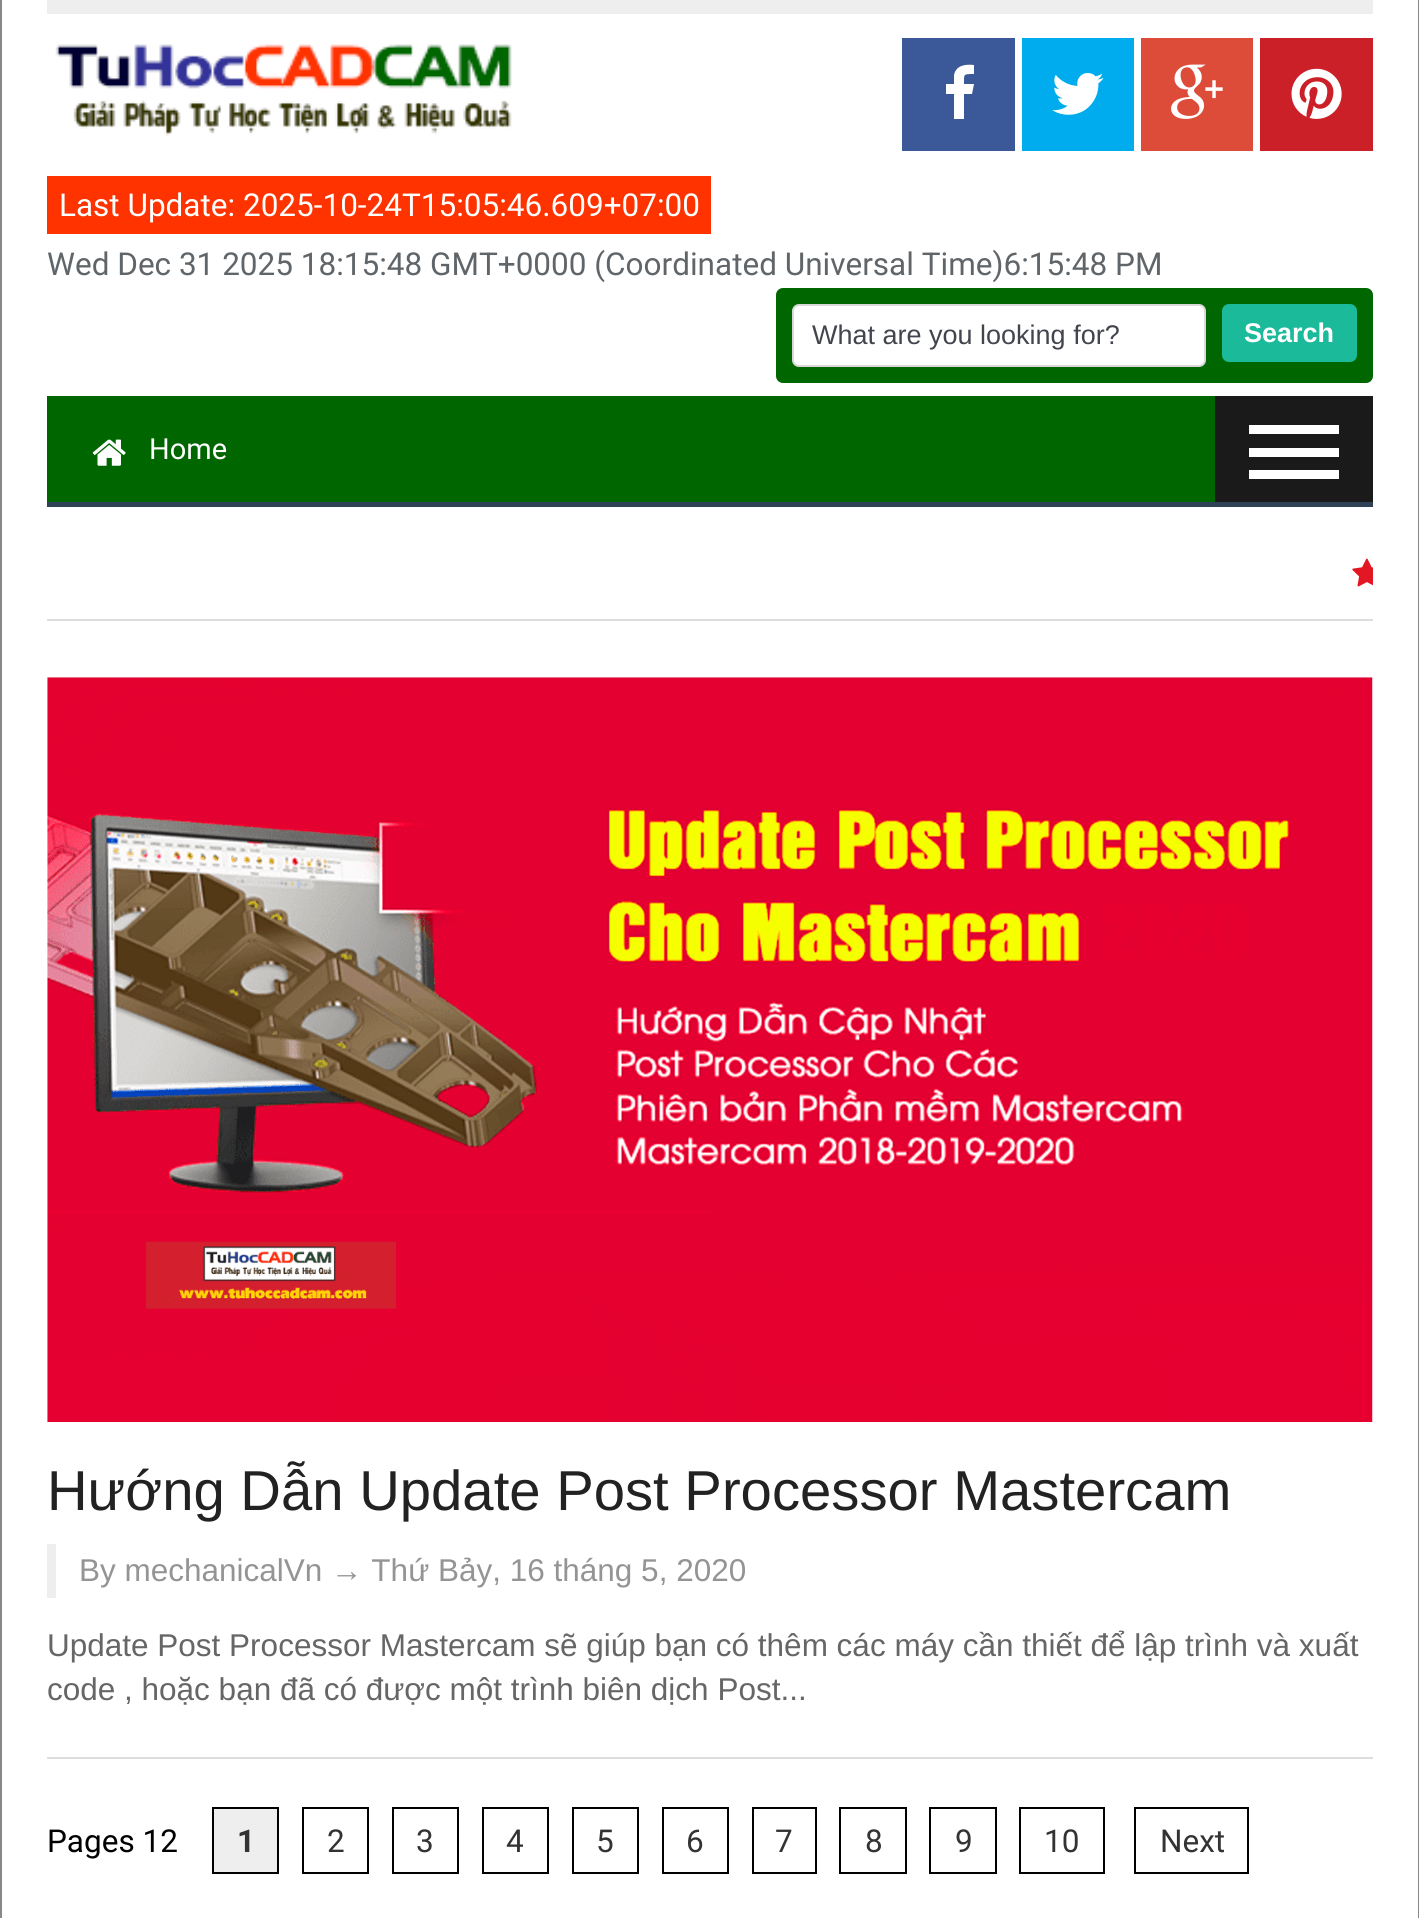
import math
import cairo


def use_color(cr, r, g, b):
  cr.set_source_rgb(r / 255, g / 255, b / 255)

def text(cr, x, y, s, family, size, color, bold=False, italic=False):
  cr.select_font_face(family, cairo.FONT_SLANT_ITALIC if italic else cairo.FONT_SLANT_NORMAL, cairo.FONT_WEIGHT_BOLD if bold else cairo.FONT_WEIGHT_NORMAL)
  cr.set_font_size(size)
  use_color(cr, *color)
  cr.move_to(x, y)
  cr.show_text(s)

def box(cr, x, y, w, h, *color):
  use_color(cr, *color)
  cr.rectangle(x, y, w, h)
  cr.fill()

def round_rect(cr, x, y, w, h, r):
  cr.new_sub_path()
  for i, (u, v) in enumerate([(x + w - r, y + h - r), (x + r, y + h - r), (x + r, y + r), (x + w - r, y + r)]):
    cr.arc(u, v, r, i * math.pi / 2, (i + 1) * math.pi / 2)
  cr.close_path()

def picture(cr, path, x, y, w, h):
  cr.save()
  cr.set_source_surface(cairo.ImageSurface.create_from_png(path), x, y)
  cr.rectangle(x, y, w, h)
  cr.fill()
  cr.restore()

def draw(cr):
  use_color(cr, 255, 255, 255)
  cr.paint()
  box(cr, 1418, 0, 1, 1918, 136, 136, 136)
  box(cr, 0, 0, 2, 1918, 136, 136, 136)
  box(cr, 47, 0, 1326, 14, 238, 238, 238)
  picture(cr, "img_01.png", 55, 44, 457, 92)
  box(cr, 902, 38, 113, 113, 59, 89, 152)
  use_color(cr, 255, 255, 255)
  cr.new_path()
  cr.move_to(974, 65)
  cr.line_to(974, 74)
  cr.curve_to(963, 74, 964, 74, 964, 84)
  cr.line_to(974, 84)
  cr.line_to(972, 94)
  cr.line_to(964, 94)
  cr.line_to(964, 119)
  cr.line_to(954, 119)
  cr.line_to(954, 94)
  cr.line_to(946, 94)
  cr.line_to(946, 84)
  cr.line_to(954, 84)
  cr.line_to(954, 75)
  cr.curve_to(956, 65, 966, 64, 974, 65)
  cr.close_path()
  cr.fill()
  box(cr, 1022, 38, 112, 113, 0, 172, 237)
  picture(cr, "img_02.png", 1052, 73, 52, 42)
  box(cr, 1141, 38, 112, 113, 221, 75, 57)
  picture(cr, "img_03.png", 1171, 64, 52, 55)
  box(cr, 1260, 38, 113, 113, 203, 32, 39)
  picture(cr, "img_04.png", 1291, 68, 51, 51)
  box(cr, 47, 176, 664, 58, 255, 51, 0)
  use_color(cr, 0, 102, 0)
  round_rect(cr, 776, 288, 597, 95, 7)
  cr.fill()
  use_color(cr, 255, 255, 255)
  round_rect(cr, 793, 305, 412, 61, 6)
  cr.fill_preserve()
  use_color(cr, 217, 217, 217)
  cr.stroke()
  use_color(cr, 27, 186, 154)
  round_rect(cr, 1222, 304, 135, 58, 7)
  cr.fill()
  box(cr, 47, 396, 1168, 106, 0, 102, 0)
  box(cr, 47, 502, 1326, 5, 47, 65, 84)
  picture(cr, "img_05.png", 92, 439, 34, 27)
  box(cr, 1215, 396, 158, 106, 26, 26, 26)
  box(cr, 1249, 425, 90, 9, 255, 255, 255)
  box(cr, 1249, 448, 90, 9, 255, 255, 255)
  box(cr, 1249, 470, 90, 9, 255, 255, 255)
  box(cr, 47, 619, 1326, 2, 221, 221, 221)
  picture(cr, "img_06.png", 1352, 558, 21, 29)
  box(cr, 47, 1757, 1326, 2, 221, 221, 221)
  picture(cr, "img_07.png", 47, 677, 1326, 745)
  box(cr, 47, 1544, 9, 54, 238, 238, 238)
  cr.rectangle(213, 1808, 65, 65)
  cr.fill_preserve()
  use_color(cr, 0, 0, 0)
  cr.stroke()
  cr.rectangle(303, 1808, 65, 65)
  cr.stroke()
  cr.rectangle(393, 1808, 65, 65)
  cr.stroke()
  cr.rectangle(483, 1808, 65, 65)
  cr.stroke()
  cr.rectangle(573, 1808, 65, 65)
  cr.stroke()
  cr.rectangle(663, 1808, 65, 65)
  cr.stroke()
  cr.rectangle(753, 1808, 63, 65)
  cr.stroke()
  cr.rectangle(840, 1808, 66, 65)
  cr.stroke()
  cr.rectangle(930, 1808, 66, 65)
  cr.stroke()
  cr.rectangle(1020, 1808, 84, 65)
  cr.stroke()
  cr.rectangle(1135, 1808, 113, 65)
  cr.stroke()
  text(cr, 59, 216, "Last Update: 2025-10-24T15:05:46.609+07:00", "Roboto", 31.5, (255, 255, 255))
  text(cr, 47, 275, "Wed Dec 31 2025 18:15:48 GMT+0000 (Coordinated Universal Time)6:15:48 PM", "Roboto", 31.5, (96, 101, 105))
  text(cr, 812, 344, "What are you looking for?", "Liberation Sans", 27, (66, 69, 78))
  text(cr, 1244, 342, "Search", "Liberation Sans", 27, (255, 255, 255), bold=True)
  text(cr, 149, 459, "Home", "Roboto", 29, (255, 255, 255))
  text(cr, 47, 1510, "Hướng Dẫn Update Post Processor Mastercam", "Liberation Sans", 56.25, (34, 34, 34))
  text(cr, 79, 1581, "By mechanicalVn → Thứ Bảy, 16 tháng 5, 2020", "Liberation Sans", 31.5, (148, 148, 148))
  text(cr, 47, 1656, "Update Post Processor Mastercam sẽ giúp bạn có thêm các máy cần thiết để lập trình và xuất", "Liberation Sans", 31.5, (102, 102, 102))
  text(cr, 47, 1700, "code , hoặc bạn đã có được một trình biên dịch Post...", "Liberation Sans", 31.5, (102, 102, 102))
  text(cr, 47, 1852, "Pages 12", "Roboto", 31.5, (0, 0, 0))
  text(cr, 237, 1852, "1", "Roboto", 31.5, (51, 51, 51), bold=True)
  text(cr, 327, 1852, "2", "Roboto", 31.5, (51, 51, 51))
  text(cr, 416, 1852, "3", "Roboto", 31.5, (51, 51, 51))
  text(cr, 506, 1852, "4", "Roboto", 31.5, (51, 51, 51))
  text(cr, 596, 1852, "5", "Roboto", 31.5, (51, 51, 51))
  text(cr, 686, 1852, "6", "Roboto", 31.5, (51, 51, 51))
  text(cr, 775, 1852, "7", "Roboto", 31.5, (51, 51, 51))
  text(cr, 865, 1852, "8", "Roboto", 31.5, (51, 51, 51))
  text(cr, 955, 1852, "9", "Roboto", 31.5, (51, 51, 51))
  text(cr, 1044, 1852, "10", "Roboto", 31.5, (51, 51, 51))
  text(cr, 1160, 1852, "Next", "Roboto", 31.5, (51, 51, 51))


surface = cairo.ImageSurface(cairo.FORMAT_RGB24, 1419, 1918)
cr = cairo.Context(surface)
options = cairo.FontOptions()
options.set_hint_metrics(cairo.HINT_METRICS_OFF)
options.set_hint_style(cairo.HINT_STYLE_NONE)
cr.set_font_options(options)
cr.set_miter_limit(4)
draw(cr)
surface.write_to_png("out.png")
